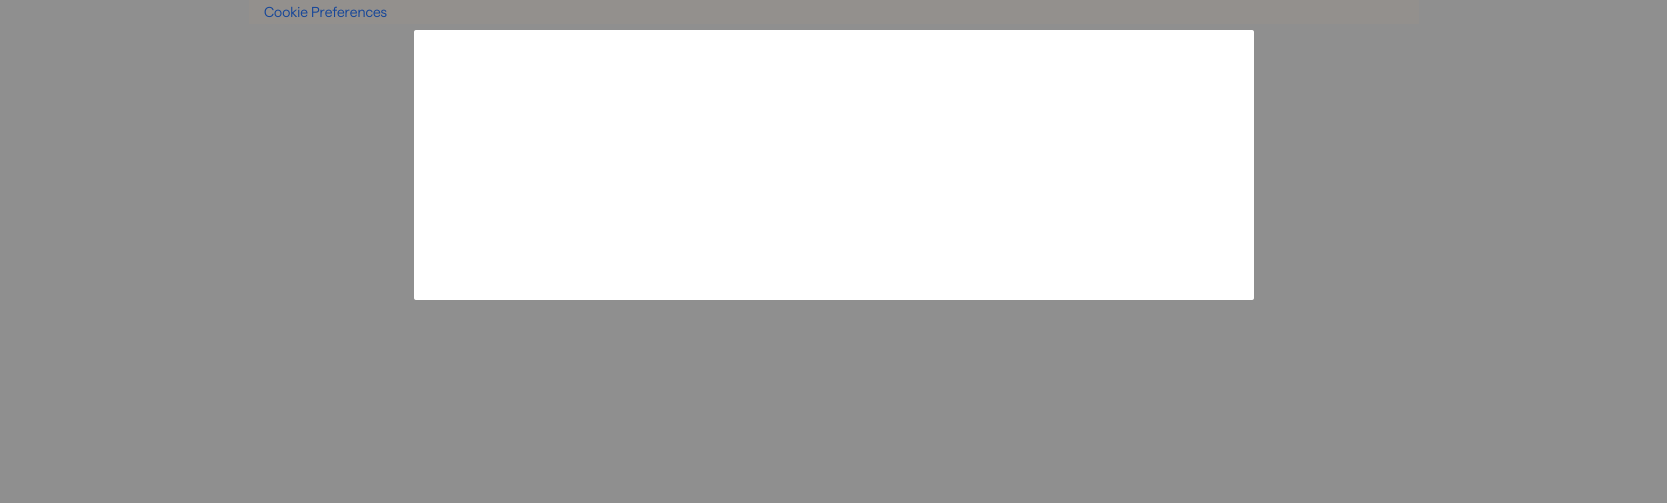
import math
import cairo


def use_color(cr, r, g, b):
  cr.set_source_rgb(r / 255, g / 255, b / 255)

def text(cr, x, y, s, family, size, color, bold=False, italic=False):
  cr.select_font_face(family, cairo.FONT_SLANT_ITALIC if italic else cairo.FONT_SLANT_NORMAL, cairo.FONT_WEIGHT_BOLD if bold else cairo.FONT_WEIGHT_NORMAL)
  cr.set_font_size(size)
  use_color(cr, *color)
  cr.move_to(x, y)
  cr.show_text(s)

def box(cr, x, y, w, h, *color):
  use_color(cr, *color)
  cr.rectangle(x, y, w, h)
  cr.fill()

def round_rect(cr, x, y, w, h, r):
  cr.new_sub_path()
  for i, (u, v) in enumerate([(x + w - r, y + h - r), (x + r, y + h - r), (x + r, y + r), (x + w - r, y + r)]):
    cr.arc(u, v, r, i * math.pi / 2, (i + 1) * math.pi / 2)
  cr.close_path()

def draw(cr):
  use_color(cr, 143, 143, 143)
  cr.paint()
  box(cr, 249, 0, 1170, 24, 147, 144, 141)
  use_color(cr, 255, 255, 255)
  round_rect(cr, 414, 30, 840, 270, 2)
  cr.fill()
  text(cr, 264, 17, "Cookie Preferences", "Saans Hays", 14, (20, 69, 153))


surface = cairo.ImageSurface(cairo.FORMAT_RGB24, 1667, 503)
cr = cairo.Context(surface)
options = cairo.FontOptions()
options.set_hint_metrics(cairo.HINT_METRICS_OFF)
options.set_hint_style(cairo.HINT_STYLE_NONE)
cr.set_font_options(options)
cr.set_miter_limit(4)
draw(cr)
surface.write_to_png("out.png")
